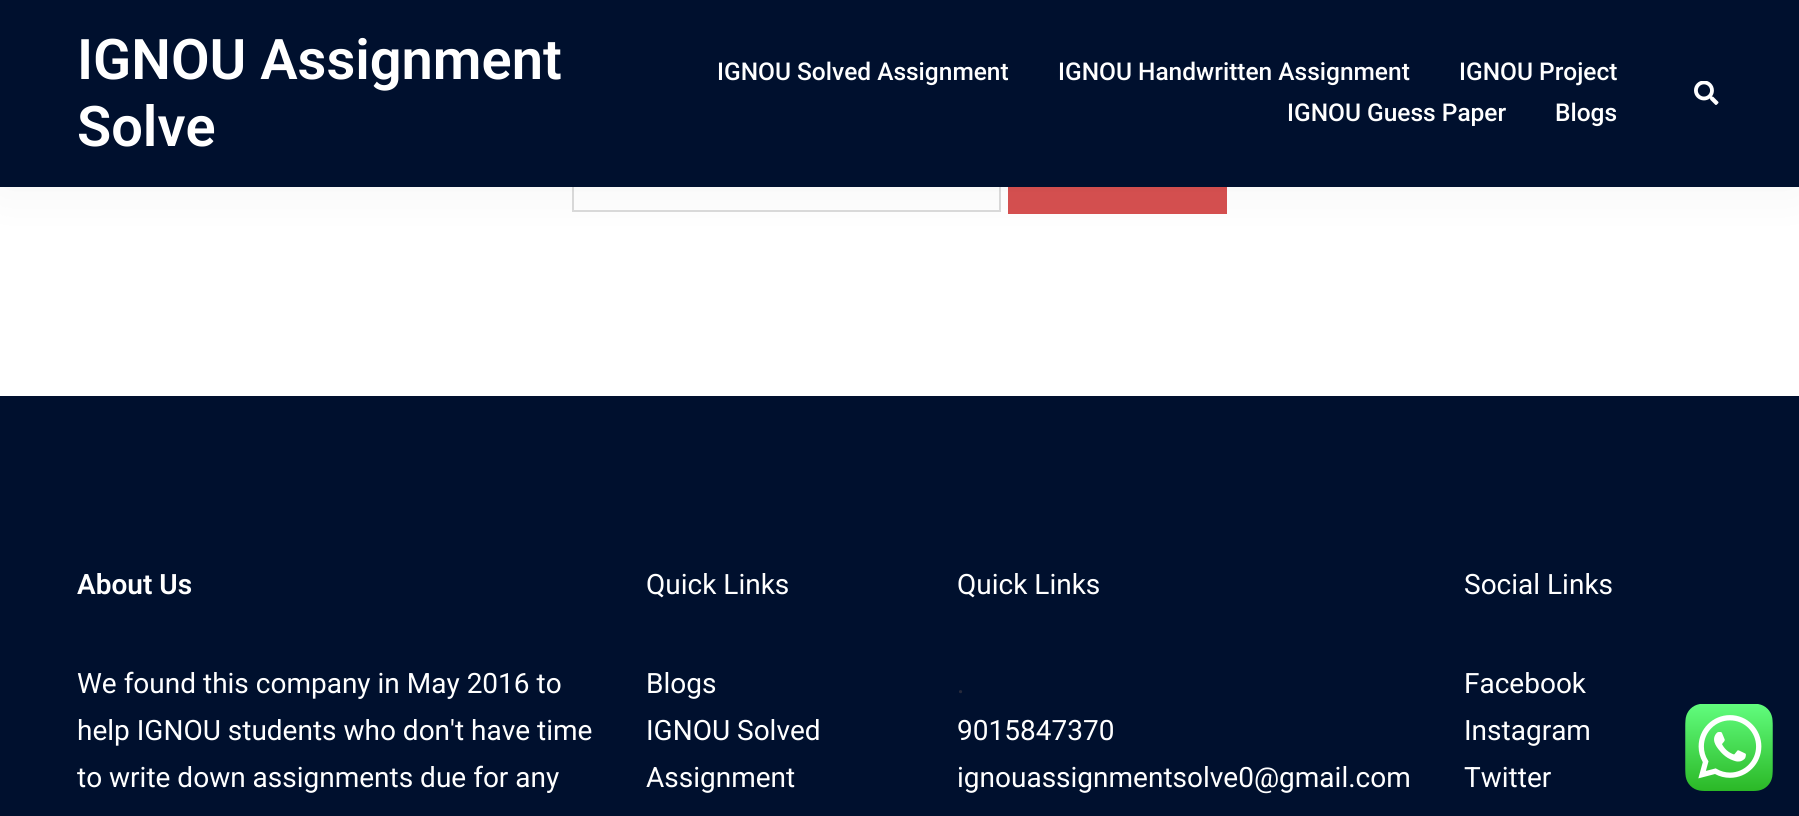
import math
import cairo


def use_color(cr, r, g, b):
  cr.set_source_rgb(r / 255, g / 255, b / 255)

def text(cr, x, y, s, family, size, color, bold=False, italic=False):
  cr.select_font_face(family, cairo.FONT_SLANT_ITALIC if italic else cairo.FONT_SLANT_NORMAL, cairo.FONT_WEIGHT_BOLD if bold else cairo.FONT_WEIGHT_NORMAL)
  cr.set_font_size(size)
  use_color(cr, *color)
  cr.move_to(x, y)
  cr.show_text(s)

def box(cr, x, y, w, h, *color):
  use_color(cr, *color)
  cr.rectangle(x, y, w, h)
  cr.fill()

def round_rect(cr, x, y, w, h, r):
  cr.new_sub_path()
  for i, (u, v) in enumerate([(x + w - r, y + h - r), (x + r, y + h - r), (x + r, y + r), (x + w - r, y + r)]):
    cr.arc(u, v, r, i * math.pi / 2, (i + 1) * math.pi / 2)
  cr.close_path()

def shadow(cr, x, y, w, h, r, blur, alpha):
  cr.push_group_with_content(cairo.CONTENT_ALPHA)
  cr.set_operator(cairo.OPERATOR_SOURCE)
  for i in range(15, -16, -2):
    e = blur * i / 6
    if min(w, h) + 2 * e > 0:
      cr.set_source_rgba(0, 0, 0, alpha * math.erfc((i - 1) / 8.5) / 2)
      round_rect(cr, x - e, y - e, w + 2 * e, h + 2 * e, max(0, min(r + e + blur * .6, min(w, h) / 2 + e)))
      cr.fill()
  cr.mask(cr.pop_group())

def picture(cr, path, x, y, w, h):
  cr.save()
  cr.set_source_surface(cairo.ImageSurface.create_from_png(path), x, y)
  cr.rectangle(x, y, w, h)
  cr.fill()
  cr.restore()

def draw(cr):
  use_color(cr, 255, 255, 255)
  cr.paint()
  cr.rectangle(573, 125, 427, 86)
  use_color(cr, 219, 219, 219)
  cr.stroke()
  box(cr, 1008, 187, 219, 27, 214, 80, 80)
  use_color(cr, 0, 0, 0)
  shadow(cr, 0, 0, 1799, 187, 0, 26, 0.05)
  box(cr, 0, 0, 1799, 187, 0, 16, 46)
  picture(cr, "img_01.png", 1694, 81, 25, 24)
  box(cr, 0, 396, 1799, 420, 0, 16, 46)
  picture(cr, "img_02.png", 1685, 704, 88, 87)
  text(cr, 77, 79, "IGNOU Assignment", "Roboto SemiBold", 56, (255, 255, 255))
  text(cr, 77, 146, "Solve", "Roboto SemiBold", 56, (255, 255, 255))
  text(cr, 717, 80, "IGNOU Solved Assignment", "Roboto Medium", 24.5, (255, 255, 255))
  text(cr, 1058, 80, "IGNOU Handwritten Assignment", "Roboto Medium", 24.5, (255, 255, 255))
  text(cr, 1459, 80, "IGNOU Project", "Roboto Medium", 24.5, (255, 255, 255))
  text(cr, 1287, 121, "IGNOU Guess Paper", "Roboto Medium", 24.5, (255, 255, 255))
  text(cr, 1555, 121, "Blogs", "Roboto Medium", 24.5, (255, 255, 255))
  text(cr, 77, 594, "About Us", "Roboto SemiBold", 28, (255, 255, 255))
  text(cr, 77, 693, "We found this company in May 2016 to", "Roboto", 28, (255, 255, 255))
  text(cr, 77, 740, "help IGNOU students who don't have time", "Roboto", 28, (255, 255, 255))
  text(cr, 77, 787, "to write down assignments due for any", "Roboto", 28, (255, 255, 255))
  text(cr, 646, 594, "Quick Links", "Roboto", 28, (255, 255, 255))
  text(cr, 646, 693, "Blogs", "Roboto", 28, (255, 255, 255))
  text(cr, 646, 740, "IGNOU Solved", "Roboto", 28, (255, 255, 255))
  text(cr, 646, 787, "Assignment", "Roboto", 28, (255, 255, 255))
  text(cr, 957, 594, "Quick Links", "Roboto", 28, (255, 255, 255))
  text(cr, 957, 693, ".", "Roboto", 28, (39, 42, 59))
  text(cr, 957, 740, "9015847370", "Roboto", 28, (255, 255, 255))
  text(cr, 957, 787, "ignouassignmentsolve0@gmail.com", "Roboto", 28, (255, 255, 255))
  text(cr, 1464, 594, "Social Links", "Roboto", 28, (255, 255, 255))
  text(cr, 1464, 693, "Facebook", "Roboto", 28, (255, 255, 255))
  text(cr, 1464, 740, "Instagram", "Roboto", 28, (255, 255, 255))
  text(cr, 1464, 787, "Twitter", "Roboto", 28, (255, 255, 255))


surface = cairo.ImageSurface(cairo.FORMAT_RGB24, 1799, 816)
cr = cairo.Context(surface)
options = cairo.FontOptions()
options.set_hint_metrics(cairo.HINT_METRICS_OFF)
options.set_hint_style(cairo.HINT_STYLE_NONE)
cr.set_font_options(options)
cr.set_miter_limit(4)
draw(cr)
surface.write_to_png("out.png")
